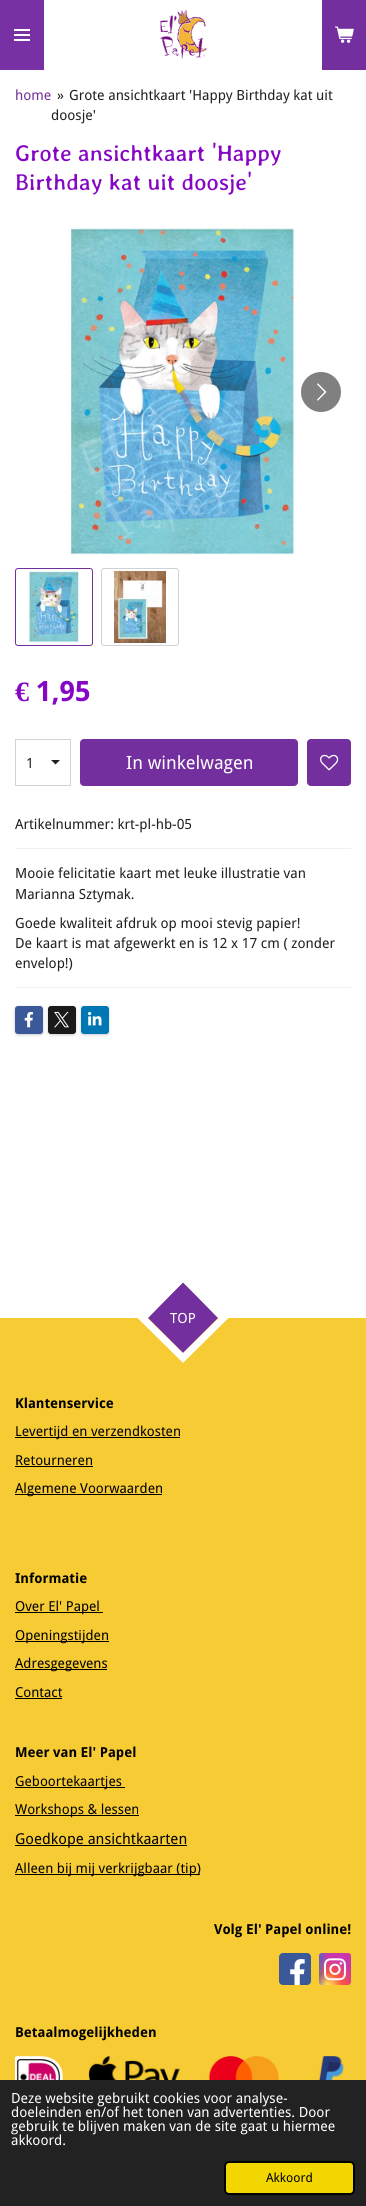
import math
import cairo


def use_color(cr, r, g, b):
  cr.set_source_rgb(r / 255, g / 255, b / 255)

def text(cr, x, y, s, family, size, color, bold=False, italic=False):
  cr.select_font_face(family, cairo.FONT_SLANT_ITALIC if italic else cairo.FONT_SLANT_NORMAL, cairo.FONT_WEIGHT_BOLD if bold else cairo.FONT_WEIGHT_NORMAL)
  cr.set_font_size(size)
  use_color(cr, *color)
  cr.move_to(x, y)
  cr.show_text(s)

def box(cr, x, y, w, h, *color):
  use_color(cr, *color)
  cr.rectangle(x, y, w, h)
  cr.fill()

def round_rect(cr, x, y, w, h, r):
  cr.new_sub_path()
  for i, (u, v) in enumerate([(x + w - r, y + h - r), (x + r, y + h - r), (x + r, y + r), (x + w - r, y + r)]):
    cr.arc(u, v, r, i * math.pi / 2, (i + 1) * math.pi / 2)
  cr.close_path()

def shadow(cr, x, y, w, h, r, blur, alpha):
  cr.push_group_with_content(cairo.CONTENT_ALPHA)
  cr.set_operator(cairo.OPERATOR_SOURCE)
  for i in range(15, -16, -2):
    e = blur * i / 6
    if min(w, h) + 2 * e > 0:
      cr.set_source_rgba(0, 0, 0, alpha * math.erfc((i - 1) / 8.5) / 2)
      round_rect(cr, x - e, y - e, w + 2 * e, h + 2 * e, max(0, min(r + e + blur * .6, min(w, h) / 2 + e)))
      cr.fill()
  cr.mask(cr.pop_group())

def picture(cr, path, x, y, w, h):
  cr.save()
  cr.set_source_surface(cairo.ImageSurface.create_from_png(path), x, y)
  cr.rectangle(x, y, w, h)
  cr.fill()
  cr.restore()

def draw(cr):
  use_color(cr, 255, 255, 255)
  cr.paint()
  box(cr, 0, 0, 44, 70, 120, 49, 165)
  box(cr, 14, 34, 16, 2, 255, 255, 255)
  box(cr, 14, 29, 16, 2, 255, 255, 255)
  box(cr, 14, 39, 16, 2, 255, 255, 255)
  picture(cr, "img_01.png", 159, 10, 48, 49)
  box(cr, 322, 0, 44, 70, 114, 47, 157)
  picture(cr, "img_02.png", 335, 26, 19, 17)
  picture(cr, "img_03.png", 70, 227, 226, 328)
  use_color(cr, 128, 128, 128)
  cr.arc(321, 392, 20, 0, 2 * math.pi)
  cr.fill()
  picture(cr, "img_04.png", 317, 383, 10, 18)
  round_rect(cr, 15.5, 568.5, 77, 77, 2.5)
  use_color(cr, 114, 47, 157)
  cr.set_line_width(1)
  cr.stroke()
  picture(cr, "img_05.png", 28, 571, 52, 72)
  round_rect(cr, 101.5, 568.5, 77, 77, 2.5)
  use_color(cr, 210, 210, 210)
  cr.stroke()
  picture(cr, "img_06.png", 114, 571, 52, 72)
  use_color(cr, 32, 32, 32)
  cr.new_path()
  cr.move_to(55.5, 764.5)
  cr.line_to(51, 760)
  cr.line_to(60, 760)
  cr.close_path()
  cr.fill()
  cr.rectangle(15.5, 739.5, 55, 46)
  use_color(cr, 211, 211, 211)
  cr.stroke()
  use_color(cr, 114, 47, 157)
  round_rect(cr, 80, 739, 218, 47, 4)
  cr.fill()
  round_rect(cr, 307, 739, 44, 47, 4)
  cr.fill()
  picture(cr, "img_07.png", 320, 754, 19, 17)
  box(cr, 15, 848, 336, 1, 239, 239, 239)
  box(cr, 15, 987, 336, 1, 239, 239, 239)
  use_color(cr, 0, 0, 0)
  shadow(cr, 15, 1007, 28, 28, 3, 1.5, 0.2)
  use_color(cr, 59, 89, 152)
  round_rect(cr, 15, 1006, 28, 28, 3)
  cr.fill()
  picture(cr, "img_08.png", 24, 1011, 9, 17)
  use_color(cr, 0, 0, 0)
  shadow(cr, 48, 1007, 28, 28, 3, 1.5, 0.2)
  use_color(cr, 26, 26, 26)
  round_rect(cr, 48, 1006, 28, 28, 3)
  cr.fill()
  picture(cr, "img_09.png", 54, 1011, 15, 17)
  use_color(cr, 0, 0, 0)
  shadow(cr, 81, 1007, 28, 28, 3, 1.5, 0.2)
  use_color(cr, 0, 119, 181)
  round_rect(cr, 81, 1006, 28, 28, 3)
  cr.fill()
  picture(cr, "img_10.png", 88, 1011, 14, 15)
  box(cr, 0, 1318, 366, 762, 247, 203, 52)
  use_color(cr, 114, 47, 157)
  cr.new_path()
  cr.move_to(183, 1282)
  cr.line_to(218, 1318)
  cr.line_to(183, 1353)
  cr.line_to(148, 1318)
  cr.close_path()
  cr.fill()
  cr.new_path()
  cr.move_to(183, 1277.5)
  cr.line_to(223.5, 1318)
  cr.line_to(183, 1358)
  cr.line_to(142.5, 1318)
  cr.close_path()
  use_color(cr, 255, 255, 255)
  cr.set_line_width(7)
  cr.stroke()
  box(cr, 15, 1437, 165, 1, 0, 0, 0)
  box(cr, 15, 1466, 78, 1, 0, 0, 0)
  box(cr, 15, 1494, 147, 1, 0, 0, 0)
  box(cr, 15, 1612, 88, 1, 0, 0, 0)
  box(cr, 15, 1641, 94, 1, 0, 0, 0)
  box(cr, 15, 1669, 92, 1, 0, 0, 0)
  box(cr, 15, 1698, 47, 1, 0, 0, 0)
  box(cr, 15, 1787, 110, 1, 0, 0, 0)
  box(cr, 15, 1815, 124, 1, 0, 0, 0)
  box(cr, 15, 1845, 172, 1, 0, 0, 0)
  box(cr, 15, 1874, 185, 1, 0, 0, 0)
  use_color(cr, 59, 89, 152)
  round_rect(cr, 279, 1953, 32, 32, 4)
  cr.fill()
  picture(cr, "img_11.png", 290, 1959, 15, 26)
  gradient = cairo.RadialGradient(0, 0, 0, 0, 0, 1)
  gradient.set_matrix(cairo.Matrix(1 / 31, 0, 0, 1 / 29, -1 * 327 / 31, -1 * 1987 / 29))
  gradient.add_color_stop_rgba(0, 1, 0.867, 0.333, 1)
  gradient.add_color_stop_rgba(0.1, 1, 0.867, 0.333, 1)
  gradient.add_color_stop_rgba(0.5, 1, 0.329, 0.243, 1)
  gradient.add_color_stop_rgba(1, 0.784, 0.216, 0.671, 1)
  cr.set_source(gradient)
  round_rect(cr, 319, 1953, 32, 32, 3)
  cr.fill()
  gradient = cairo.RadialGradient(0, 0, 0, 0, 0, 1)
  gradient.set_matrix(cairo.Matrix(1 / 14, 0, 0, 1 / 58, -1 * 314 / 14, -1 * 1955 / 58))
  gradient.add_color_stop_rgba(0, 0.216, 0.443, 0.784, 1)
  gradient.add_color_stop_rgba(0.13, 0.216, 0.443, 0.784, 1)
  gradient.add_color_stop_rgba(1, 0.216, 0.443, 0.784, 0)
  cr.set_source(gradient)
  round_rect(cr, 319, 1953, 32, 32, 3)
  cr.fill()
  picture(cr, "img_12.png", 324, 1958, 22, 23)
  picture(cr, "img_13.png", 15, 2056, 329, 24)
  box(cr, 0, 2080, 366, 126, 34, 34, 34)
  use_color(cr, 241, 214, 0)
  round_rect(cr, 225, 2162, 129, 32, 4)
  cr.fill_preserve()
  use_color(cr, 0, 0, 0)
  cr.set_line_width(2)
  cr.stroke()
  text(cr, 15, 100, "home", "Droid Sans", 14, (114, 47, 157))
  text(cr, 57, 100, "»", "Droid Sans", 14, (32, 32, 32))
  text(cr, 69, 100, "Grote ansichtkaart 'Happy Birthday kat uit", "Droid Sans", 14, (32, 32, 32))
  text(cr, 51, 120, "doosje'", "Droid Sans", 14, (32, 32, 32))
  text(cr, 15, 161, "Grote ansichtkaart 'Happy", "Stylish", 26, (134, 6, 197))
  text(cr, 15, 190, "Birthday kat uit doosje'", "Stylish", 26, (134, 6, 197))
  text(cr, 15, 701, "€", "Liberation Serif", 28, (134, 6, 197), bold=True)
  text(cr, 36, 701, "1,95", "Droid Sans", 28, (134, 6, 197), bold=True)
  text(cr, 26, 768, "1", "Droid Sans", 14, (32, 32, 32))
  text(cr, 126, 769, "In winkelwagen", "Droid Sans", 18.25, (255, 255, 255))
  text(cr, 15, 829, "Artikelnummer: krt-pl-hb-05", "Droid Sans", 14, (32, 32, 32))
  text(cr, 15, 878, "Mooie felicitatie kaart met leuke illustratie van", "Droid Sans", 14, (32, 32, 32))
  text(cr, 15, 899, "Marianna Sztymak.", "Droid Sans", 14, (32, 32, 32))
  text(cr, 15, 928, "Goede kwaliteit afdruk op mooi stevig papier!", "Droid Sans", 14, (32, 32, 32))
  text(cr, 15, 948, "De kaart is mat afgewerkt en is 12 x 17 cm ( zonder", "Droid Sans", 14, (32, 32, 32))
  text(cr, 15, 968, "envelop!)", "Droid Sans", 14, (32, 32, 32))
  text(cr, 170, 1323, "TOP", "Droid Sans", 14, (255, 255, 255))
  text(cr, 15, 1408, "Klantenservice", "Droid Sans", 13.75, (0, 0, 0), bold=True)
  text(cr, 15, 1436, "Levertijd en verzendkosten", "Droid Sans", 13.75, (0, 0, 0))
  text(cr, 15, 1465, "Retourneren", "Droid Sans", 13.75, (0, 0, 0))
  text(cr, 15, 1493, "Algemene Voorwaarden", "Droid Sans", 13.75, (0, 0, 0))
  text(cr, 15, 1583, "Informatie", "Droid Sans", 13.75, (0, 0, 0), bold=True)
  text(cr, 15, 1611, "Over El' Papel", "Droid Sans", 13.75, (0, 0, 0))
  text(cr, 15, 1640, "Openingstijden", "Droid Sans", 13.75, (0, 0, 0))
  text(cr, 15, 1668, "Adresgegevens", "Droid Sans", 13.75, (0, 0, 0))
  text(cr, 15, 1697, "Contact", "Droid Sans", 13.75, (0, 0, 0))
  text(cr, 15, 1757, "Meer van El' Papel", "Droid Sans", 13.75, (0, 0, 0), bold=True)
  text(cr, 15, 1786, "Geboortekaartjes", "Droid Sans", 13.75, (0, 0, 0))
  text(cr, 15, 1814, "Workshops & lessen", "Droid Sans", 13.75, (0, 0, 0))
  text(cr, 15, 1844, "Goedkope ansichtkaarten", "Droid Sans", 15, (0, 0, 0))
  text(cr, 15, 1873, "Alleen bij mij verkrijgbaar (tip)", "Droid Sans", 13.75, (0, 0, 0))
  text(cr, 214, 1934, "Volg El' Papel online!", "Droid Sans", 13.75, (0, 0, 0), bold=True)
  text(cr, 15, 2037, "Betaalmogelijkheden", "Droid Sans", 13.75, (0, 0, 0), bold=True)
  text(cr, 11, 2103, "Deze website gebruikt cookies voor analyse-", "Droid Sans", 14, (255, 255, 255))
  text(cr, 11, 2117, "doeleinden en/of het tonen van advertenties. Door", "Droid Sans", 14, (255, 255, 255))
  text(cr, 11, 2131, "gebruik te blijven maken van de site gaat u hiermee", "Droid Sans", 14, (255, 255, 255))
  text(cr, 11, 2145, "akkoord.", "Droid Sans", 14, (255, 255, 255))
  text(cr, 266, 2182, "Akkoord", "Droid Sans", 12.5, (0, 0, 0))


surface = cairo.ImageSurface(cairo.FORMAT_RGB24, 366, 2206)
cr = cairo.Context(surface)
options = cairo.FontOptions()
options.set_hint_metrics(cairo.HINT_METRICS_OFF)
options.set_hint_style(cairo.HINT_STYLE_NONE)
cr.set_font_options(options)
cr.set_miter_limit(4)
draw(cr)
surface.write_to_png("out.png")
